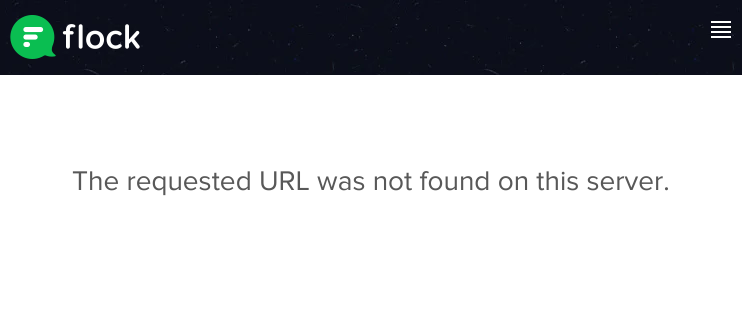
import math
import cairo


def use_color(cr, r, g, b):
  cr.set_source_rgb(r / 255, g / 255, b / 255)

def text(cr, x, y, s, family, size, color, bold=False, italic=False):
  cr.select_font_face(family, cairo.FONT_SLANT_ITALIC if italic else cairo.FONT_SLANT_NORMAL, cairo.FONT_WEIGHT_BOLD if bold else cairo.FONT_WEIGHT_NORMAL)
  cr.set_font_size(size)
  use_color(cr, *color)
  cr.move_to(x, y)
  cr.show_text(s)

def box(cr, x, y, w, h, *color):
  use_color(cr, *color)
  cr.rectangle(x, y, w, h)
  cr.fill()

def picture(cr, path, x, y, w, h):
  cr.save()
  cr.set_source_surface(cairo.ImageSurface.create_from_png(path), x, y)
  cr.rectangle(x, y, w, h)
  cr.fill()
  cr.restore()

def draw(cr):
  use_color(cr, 255, 255, 255)
  cr.paint()
  box(cr, 0, 0, 742, 75, 12, 14, 26)
  picture(cr, "img_01.png", 5, 0, 735, 75)
  picture(cr, "img_02.png", 10, 15, 130, 44)
  box(cr, 711, 21, 20, 2, 255, 255, 255)
  box(cr, 711, 26, 20, 2, 255, 255, 255)
  box(cr, 711, 31, 20, 2, 255, 255, 255)
  box(cr, 711, 36, 20, 2, 255, 255, 255)
  text(cr, 72, 190, "The requested URL was not found on this server.", "Proxima Nova", 28, (88, 88, 88))


surface = cairo.ImageSurface(cairo.FORMAT_RGB24, 742, 317)
cr = cairo.Context(surface)
options = cairo.FontOptions()
options.set_hint_metrics(cairo.HINT_METRICS_OFF)
options.set_hint_style(cairo.HINT_STYLE_NONE)
cr.set_font_options(options)
cr.set_miter_limit(4)
draw(cr)
surface.write_to_png("out.png")
